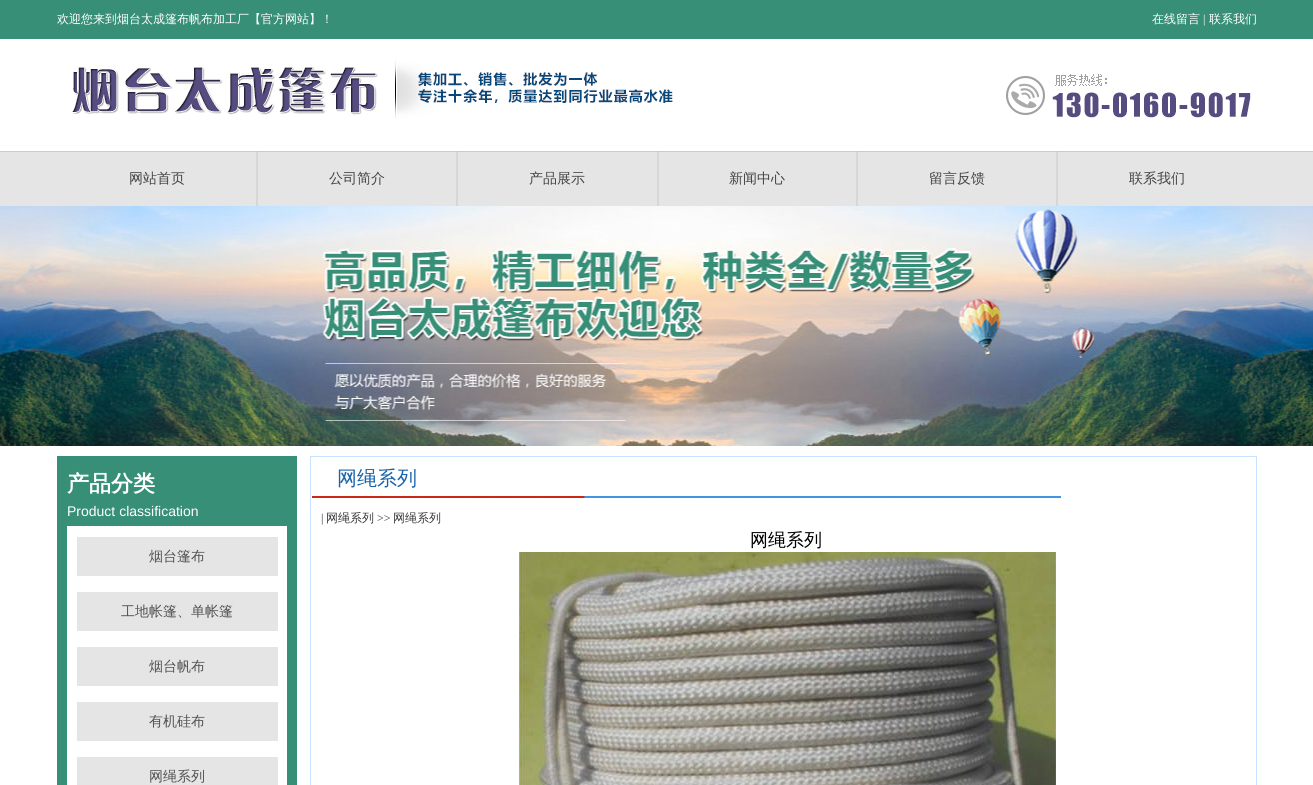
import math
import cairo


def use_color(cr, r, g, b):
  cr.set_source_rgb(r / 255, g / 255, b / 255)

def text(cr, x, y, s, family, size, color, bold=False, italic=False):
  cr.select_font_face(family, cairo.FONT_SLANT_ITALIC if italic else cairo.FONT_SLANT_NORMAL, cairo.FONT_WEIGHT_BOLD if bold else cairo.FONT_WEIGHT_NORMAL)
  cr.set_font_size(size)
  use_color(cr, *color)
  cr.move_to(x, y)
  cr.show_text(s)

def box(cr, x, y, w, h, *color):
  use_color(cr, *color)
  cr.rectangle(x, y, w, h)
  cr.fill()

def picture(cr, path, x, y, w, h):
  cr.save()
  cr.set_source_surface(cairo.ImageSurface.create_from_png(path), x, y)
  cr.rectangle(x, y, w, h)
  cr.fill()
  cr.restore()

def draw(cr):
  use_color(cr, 255, 255, 255)
  cr.paint()
  box(cr, 0, 0, 1313, 39, 55, 143, 119)
  picture(cr, "img_01.png", 72, 60, 601, 58)
  picture(cr, "img_02.png", 1006, 74, 245, 45)
  picture(cr, "img_03.png", 0, 151, 1313, 55)
  picture(cr, "img_04.png", 0, 206, 1313, 240)
  picture(cr, "img_05.png", 57, 456, 240, 73)
  picture(cr, "img_06.png", 57, 529, 240, 256)
  cr.rectangle(310.5, 456.5, 946, 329)
  use_color(cr, 198, 226, 254)
  cr.set_line_width(1)
  cr.stroke()
  picture(cr, "img_07.png", 312, 496, 749, 2)
  picture(cr, "img_08.png", 519, 552, 537, 233)
  text(cr, 57, 23, "欢迎您来到烟台太成篷布帆布加工厂【官方网站】！", "WenQuanYi Zen Hei Medium", 12, (255, 255, 255))
  text(cr, 1152, 23, "在线留言", "WenQuanYi Zen Hei Medium", 12, (255, 255, 255))
  text(cr, 1203, 23, "|", "Liberation Serif", 12, (255, 255, 255))
  text(cr, 1209, 23, "联系我们", "WenQuanYi Zen Hei Medium", 12, (255, 255, 255))
  text(cr, 129, 183, "网站首页", "WenQuanYi Zen Hei Medium", 14, (67, 67, 67))
  text(cr, 329, 183, "公司简介", "WenQuanYi Zen Hei Medium", 14, (67, 67, 67))
  text(cr, 529, 183, "产品展示", "WenQuanYi Zen Hei Medium", 14, (67, 67, 67))
  text(cr, 729, 183, "新闻中心", "WenQuanYi Zen Hei Medium", 14, (67, 67, 67))
  text(cr, 929, 183, "留言反馈", "WenQuanYi Zen Hei Medium", 14, (67, 67, 67))
  text(cr, 1129, 183, "联系我们", "WenQuanYi Zen Hei Medium", 14, (67, 67, 67))
  text(cr, 67, 491, "产品分类", "WenQuanYi Zen Hei", 22, (255, 255, 255), bold=True)
  text(cr, 67, 516, "Product classification", "Liberation Sans", 14, (255, 255, 255))
  text(cr, 149, 561, "烟台篷布", "WenQuanYi Zen Hei Medium", 14, (83, 83, 83))
  text(cr, 121, 616, "工地帐篷、单帐篷", "WenQuanYi Zen Hei Medium", 14, (83, 83, 83))
  text(cr, 149, 671, "烟台帆布", "WenQuanYi Zen Hei Medium", 14, (83, 83, 83))
  text(cr, 149, 726, "有机硅布", "WenQuanYi Zen Hei Medium", 14, (83, 83, 83))
  text(cr, 149, 781, "网绳系列", "WenQuanYi Zen Hei Medium", 14, (83, 83, 83))
  text(cr, 337, 485, "网绳系列", "WenQuanYi Zen Hei Medium", 20, (25, 101, 171))
  text(cr, 321, 522, "|", "Liberation Serif", 12, (59, 58, 58))
  text(cr, 326, 522, "网绳系列", "WenQuanYi Zen Hei Medium", 12, (59, 58, 58))
  text(cr, 377, 522, ">>", "Liberation Serif", 12, (59, 58, 58))
  text(cr, 393, 522, "网绳系列", "WenQuanYi Zen Hei Medium", 12, (59, 58, 58))
  text(cr, 750, 546, "网绳系列", "WenQuanYi Zen Hei Medium", 18, (0, 0, 0))


surface = cairo.ImageSurface(cairo.FORMAT_RGB24, 1313, 785)
cr = cairo.Context(surface)
options = cairo.FontOptions()
options.set_hint_metrics(cairo.HINT_METRICS_OFF)
options.set_hint_style(cairo.HINT_STYLE_NONE)
cr.set_font_options(options)
cr.set_miter_limit(4)
draw(cr)
surface.write_to_png("out.png")
